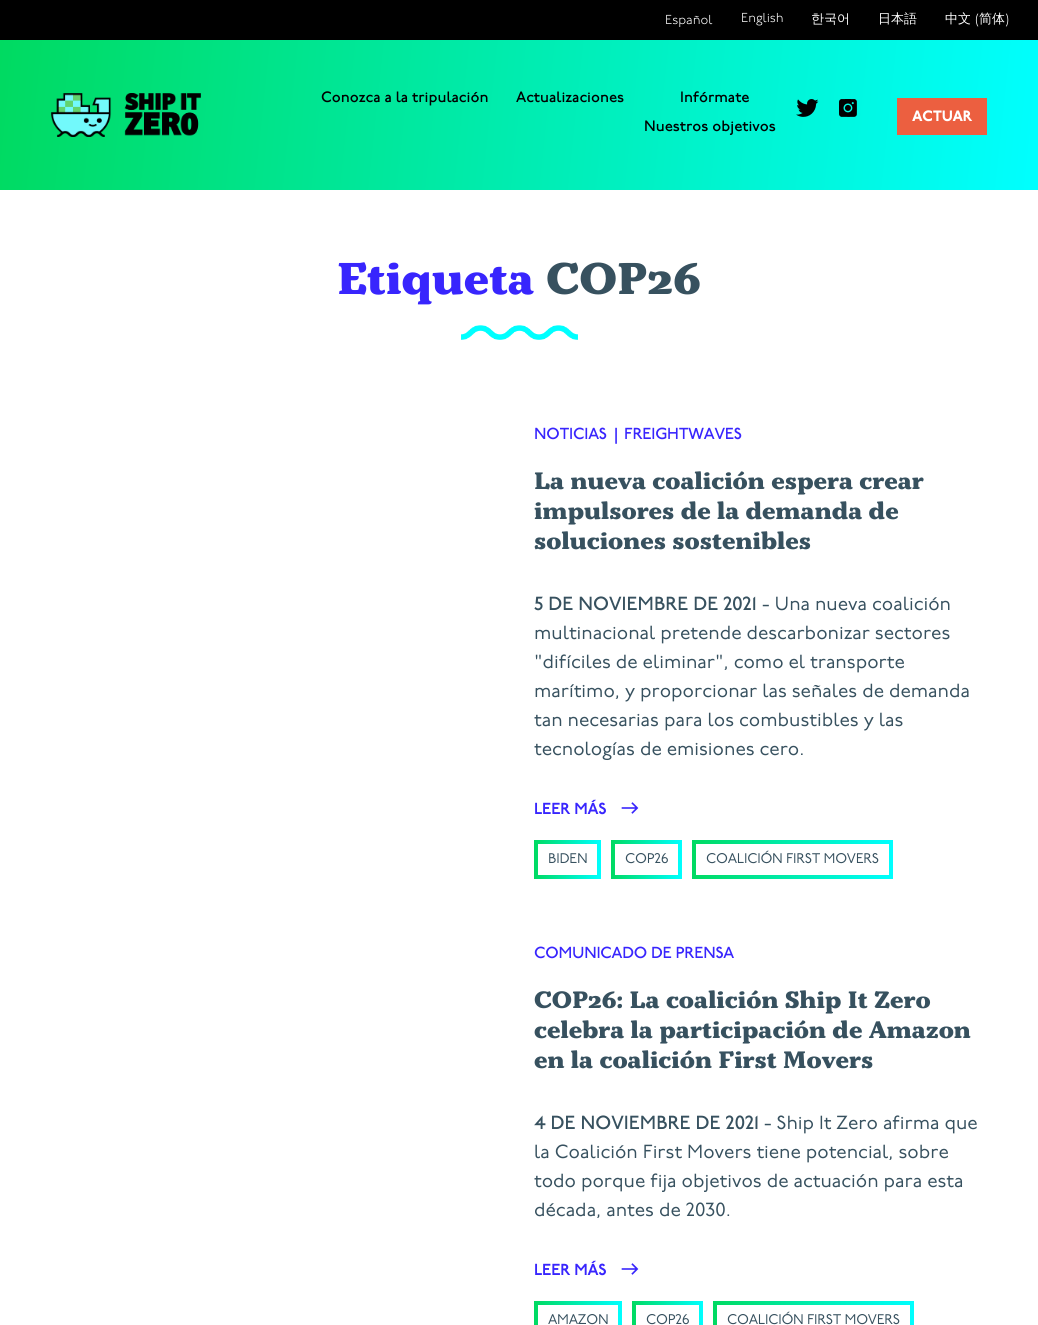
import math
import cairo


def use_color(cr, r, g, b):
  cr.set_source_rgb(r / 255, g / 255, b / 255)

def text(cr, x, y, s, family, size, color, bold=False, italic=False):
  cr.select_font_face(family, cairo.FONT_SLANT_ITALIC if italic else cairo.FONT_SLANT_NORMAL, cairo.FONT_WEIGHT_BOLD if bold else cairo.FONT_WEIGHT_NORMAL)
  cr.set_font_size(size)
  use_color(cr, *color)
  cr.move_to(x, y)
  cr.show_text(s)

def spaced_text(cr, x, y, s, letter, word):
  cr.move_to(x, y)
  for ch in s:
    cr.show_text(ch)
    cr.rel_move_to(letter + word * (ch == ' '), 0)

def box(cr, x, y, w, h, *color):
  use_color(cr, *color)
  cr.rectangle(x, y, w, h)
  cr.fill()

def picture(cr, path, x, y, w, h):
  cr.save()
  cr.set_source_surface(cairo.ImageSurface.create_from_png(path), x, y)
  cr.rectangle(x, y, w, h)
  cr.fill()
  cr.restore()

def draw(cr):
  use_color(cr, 255, 255, 255)
  cr.paint()
  box(cr, 0, 0, 1038, 40, 0, 0, 0)
  gradient = cairo.LinearGradient(-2.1, 60, 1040, 170)
  gradient.add_color_stop_rgba(0, 0, 0.855, 0.38, 1)
  gradient.add_color_stop_rgba(1, 0, 1, 1, 1)
  cr.set_source(gradient)
  cr.rectangle(0, 40, 1038, 150)
  cr.fill()
  picture(cr, "img_01.png", 51, 93, 150, 44)
  picture(cr, "img_02.png", 796, 99, 23, 18)
  picture(cr, "img_03.png", 839, 99, 18, 18)
  box(cr, 897, 98, 90, 37, 236, 95, 64)
  picture(cr, "img_04.png", 461, 325, 117, 15)
  picture(cr, "img_05.png", 621, 802, 18, 12)
  gradient = cairo.LinearGradient(534, 860, 601, 860)
  gradient.add_color_stop_rgba(0, 0, 0.855, 0.38, 1)
  gradient.add_color_stop_rgba(1, 0, 1, 1, 1)
  cr.set_source(gradient)
  cr.rectangle(534, 840, 67, 39)
  cr.fill()
  box(cr, 538, 844, 59, 31, 255, 255, 255)
  gradient = cairo.LinearGradient(611, 860, 682, 860)
  gradient.add_color_stop_rgba(0, 0, 0.855, 0.38, 1)
  gradient.add_color_stop_rgba(1, 0, 1, 1, 1)
  cr.set_source(gradient)
  cr.rectangle(611, 840, 71, 39)
  cr.fill()
  box(cr, 615, 844, 63, 31, 255, 255, 255)
  gradient = cairo.LinearGradient(692, 860, 893, 860)
  gradient.add_color_stop_rgba(0, 0, 0.855, 0.38, 1)
  gradient.add_color_stop_rgba(1, 0, 1, 1, 1)
  cr.set_source(gradient)
  cr.rectangle(692, 840, 201, 39)
  cr.fill()
  box(cr, 696, 844, 193, 31, 255, 255, 255)
  picture(cr, "img_05.png", 621, 1263, 18, 12)
  gradient = cairo.LinearGradient(534, 1321, 622, 1321)
  gradient.add_color_stop_rgba(0, 0, 0.855, 0.38, 1)
  gradient.add_color_stop_rgba(1, 0, 1, 1, 1)
  cr.set_source(gradient)
  cr.rectangle(534, 1301, 88, 24)
  cr.fill()
  box(cr, 538, 1305, 80, 20, 255, 255, 255)
  gradient = cairo.LinearGradient(632, 1321, 703, 1321)
  gradient.add_color_stop_rgba(0, 0, 0.855, 0.38, 1)
  gradient.add_color_stop_rgba(1, 0, 1, 1, 1)
  cr.set_source(gradient)
  cr.rectangle(632, 1301, 71, 24)
  cr.fill()
  box(cr, 636, 1305, 63, 20, 255, 255, 255)
  gradient = cairo.LinearGradient(713, 1321, 914, 1321)
  gradient.add_color_stop_rgba(0, 0, 0.855, 0.38, 1)
  gradient.add_color_stop_rgba(1, 0, 1, 1, 1)
  cr.set_source(gradient)
  cr.rectangle(713, 1301, 201, 24)
  cr.fill()
  box(cr, 717, 1305, 193, 20, 255, 255, 255)
  text(cr, 665, 24, "Español", "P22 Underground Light", 13, (255, 255, 255))
  text(cr, 741, 22, "English", "P22 Underground Light", 13, (255, 255, 255))
  text(cr, 811, 23, "한국어", "WenQuanYi Zen Hei Medium", 13, (255, 255, 255))
  text(cr, 878, 23, "日本語", "WenQuanYi Zen Hei Medium", 13, (255, 255, 255))
  text(cr, 945, 23, "中文", "WenQuanYi Zen Hei Medium", 13, (255, 255, 255))
  text(cr, 975, 23, "(", "P22 Underground Light", 13, (255, 255, 255))
  text(cr, 979, 23, "简体", "WenQuanYi Zen Hei Medium", 13, (255, 255, 255))
  text(cr, 1005, 23, ")", "P22 Underground Light", 13, (255, 255, 255))
  text(cr, 321, 102, "Conozca a la tripulación", "P22 Underground Medium", 15, (0, 0, 0))
  text(cr, 516, 102, "Actualizaciones", "P22 Underground Medium", 15, (0, 0, 0))
  text(cr, 680, 102, "Infórmate", "P22 Underground Medium", 15, (0, 0, 0))
  text(cr, 644, 131, "Nuestros objetivos", "P22 Underground Medium", 15, (0, 0, 0))
  cr.select_font_face("P22 Underground Black")
  use_color(cr, 255, 255, 255)
  spaced_text(cr, 912, 121, "ACTUAR", -0.25, 0)
  text(cr, 337, 294, "Etiqueta", "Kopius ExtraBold", 45, (56, 37, 253))
  text(cr, 546, 294, "COP26", "Kopius ExtraBold", 45, (55, 81, 95))
  cr.select_font_face("P22 Underground Medium")
  cr.set_font_size(16)
  use_color(cr, 56, 37, 253)
  spaced_text(cr, 534, 439, "NOTICIAS", -0.25, 0)
  spaced_text(cr, 614, 439, "|", -0.25, 0)
  spaced_text(cr, 624, 439, "FREIGHTWAVES", -0.25, 0)
  text(cr, 534, 489, "La nueva coalición espera crear", "Kopius ExtraBold", 24, (55, 81, 95))
  text(cr, 534, 519, "impulsores de la demanda de", "Kopius ExtraBold", 24, (55, 81, 95))
  text(cr, 534, 549, "soluciones sostenibles", "Kopius ExtraBold", 24, (55, 81, 95))
  text(cr, 534, 610, "5 DE NOVIEMBRE DE 2021", "P22 Underground Medium", 19, (55, 81, 95))
  text(cr, 762, 610, "- Una nueva coalición", "P22 Underground", 19, (55, 81, 95))
  text(cr, 534, 639, "multinacional pretende descarbonizar sectores", "P22 Underground", 19, (55, 81, 95))
  text(cr, 534, 668, "\"difíciles de eliminar\", como el transporte", "P22 Underground", 19, (55, 81, 95))
  text(cr, 534, 697, "marítimo, y proporcionar las señales de demanda", "P22 Underground", 19, (55, 81, 95))
  text(cr, 534, 726, "tan necesarias para los combustibles y las", "P22 Underground", 19, (55, 81, 95))
  text(cr, 534, 755, "tecnologías de emisiones cero.", "P22 Underground", 19, (55, 81, 95))
  cr.select_font_face("P22 Underground SemiBold")
  cr.set_font_size(16)
  use_color(cr, 56, 37, 253)
  spaced_text(cr, 534, 814, "LEER MÁS", -0.25, 0)
  cr.select_font_face("P22 Underground")
  cr.set_font_size(14)
  use_color(cr, 55, 81, 95)
  spaced_text(cr, 548, 863, "BIDEN", -0.25, 0)
  spaced_text(cr, 625, 863, "COP26", -0.25, 0)
  spaced_text(cr, 706, 863, "COALICIÓN FIRST MOVERS", -0.25, 0)
  cr.select_font_face("P22 Underground Medium")
  cr.set_font_size(16)
  use_color(cr, 56, 37, 253)
  spaced_text(cr, 534, 958, "COMUNICADO DE PRENSA", -0.25, 0)
  text(cr, 534, 1008, "COP26: La coalición Ship It Zero", "Kopius ExtraBold", 24, (55, 81, 95))
  text(cr, 534, 1038, "celebra la participación de Amazon", "Kopius ExtraBold", 24, (55, 81, 95))
  text(cr, 534, 1068, "en la coalición First Movers", "Kopius ExtraBold", 24, (55, 81, 95))
  text(cr, 534, 1129, "4 DE NOVIEMBRE DE 2021", "P22 Underground Medium", 19, (55, 81, 95))
  text(cr, 764, 1129, "- Ship It Zero afirma que", "P22 Underground", 19, (55, 81, 95))
  text(cr, 534, 1158, "la Coalición First Movers tiene potencial, sobre", "P22 Underground", 19, (55, 81, 95))
  text(cr, 534, 1187, "todo porque fija objetivos de actuación para esta", "P22 Underground", 19, (55, 81, 95))
  text(cr, 534, 1216, "década, antes de 2030.", "P22 Underground", 19, (55, 81, 95))
  cr.select_font_face("P22 Underground SemiBold")
  cr.set_font_size(16)
  use_color(cr, 56, 37, 253)
  spaced_text(cr, 534, 1275, "LEER MÁS", -0.25, 0)
  cr.select_font_face("P22 Underground")
  cr.set_font_size(14)
  use_color(cr, 55, 81, 95)
  spaced_text(cr, 548, 1324, "AMAZON", -0.25, 0)
  spaced_text(cr, 646, 1324, "COP26", -0.25, 0)
  spaced_text(cr, 727, 1324, "COALICIÓN FIRST MOVERS", -0.25, 0)


surface = cairo.ImageSurface(cairo.FORMAT_RGB24, 1038, 1325)
cr = cairo.Context(surface)
options = cairo.FontOptions()
options.set_hint_metrics(cairo.HINT_METRICS_OFF)
options.set_hint_style(cairo.HINT_STYLE_NONE)
cr.set_font_options(options)
cr.set_miter_limit(4)
draw(cr)
surface.write_to_png("out.png")
